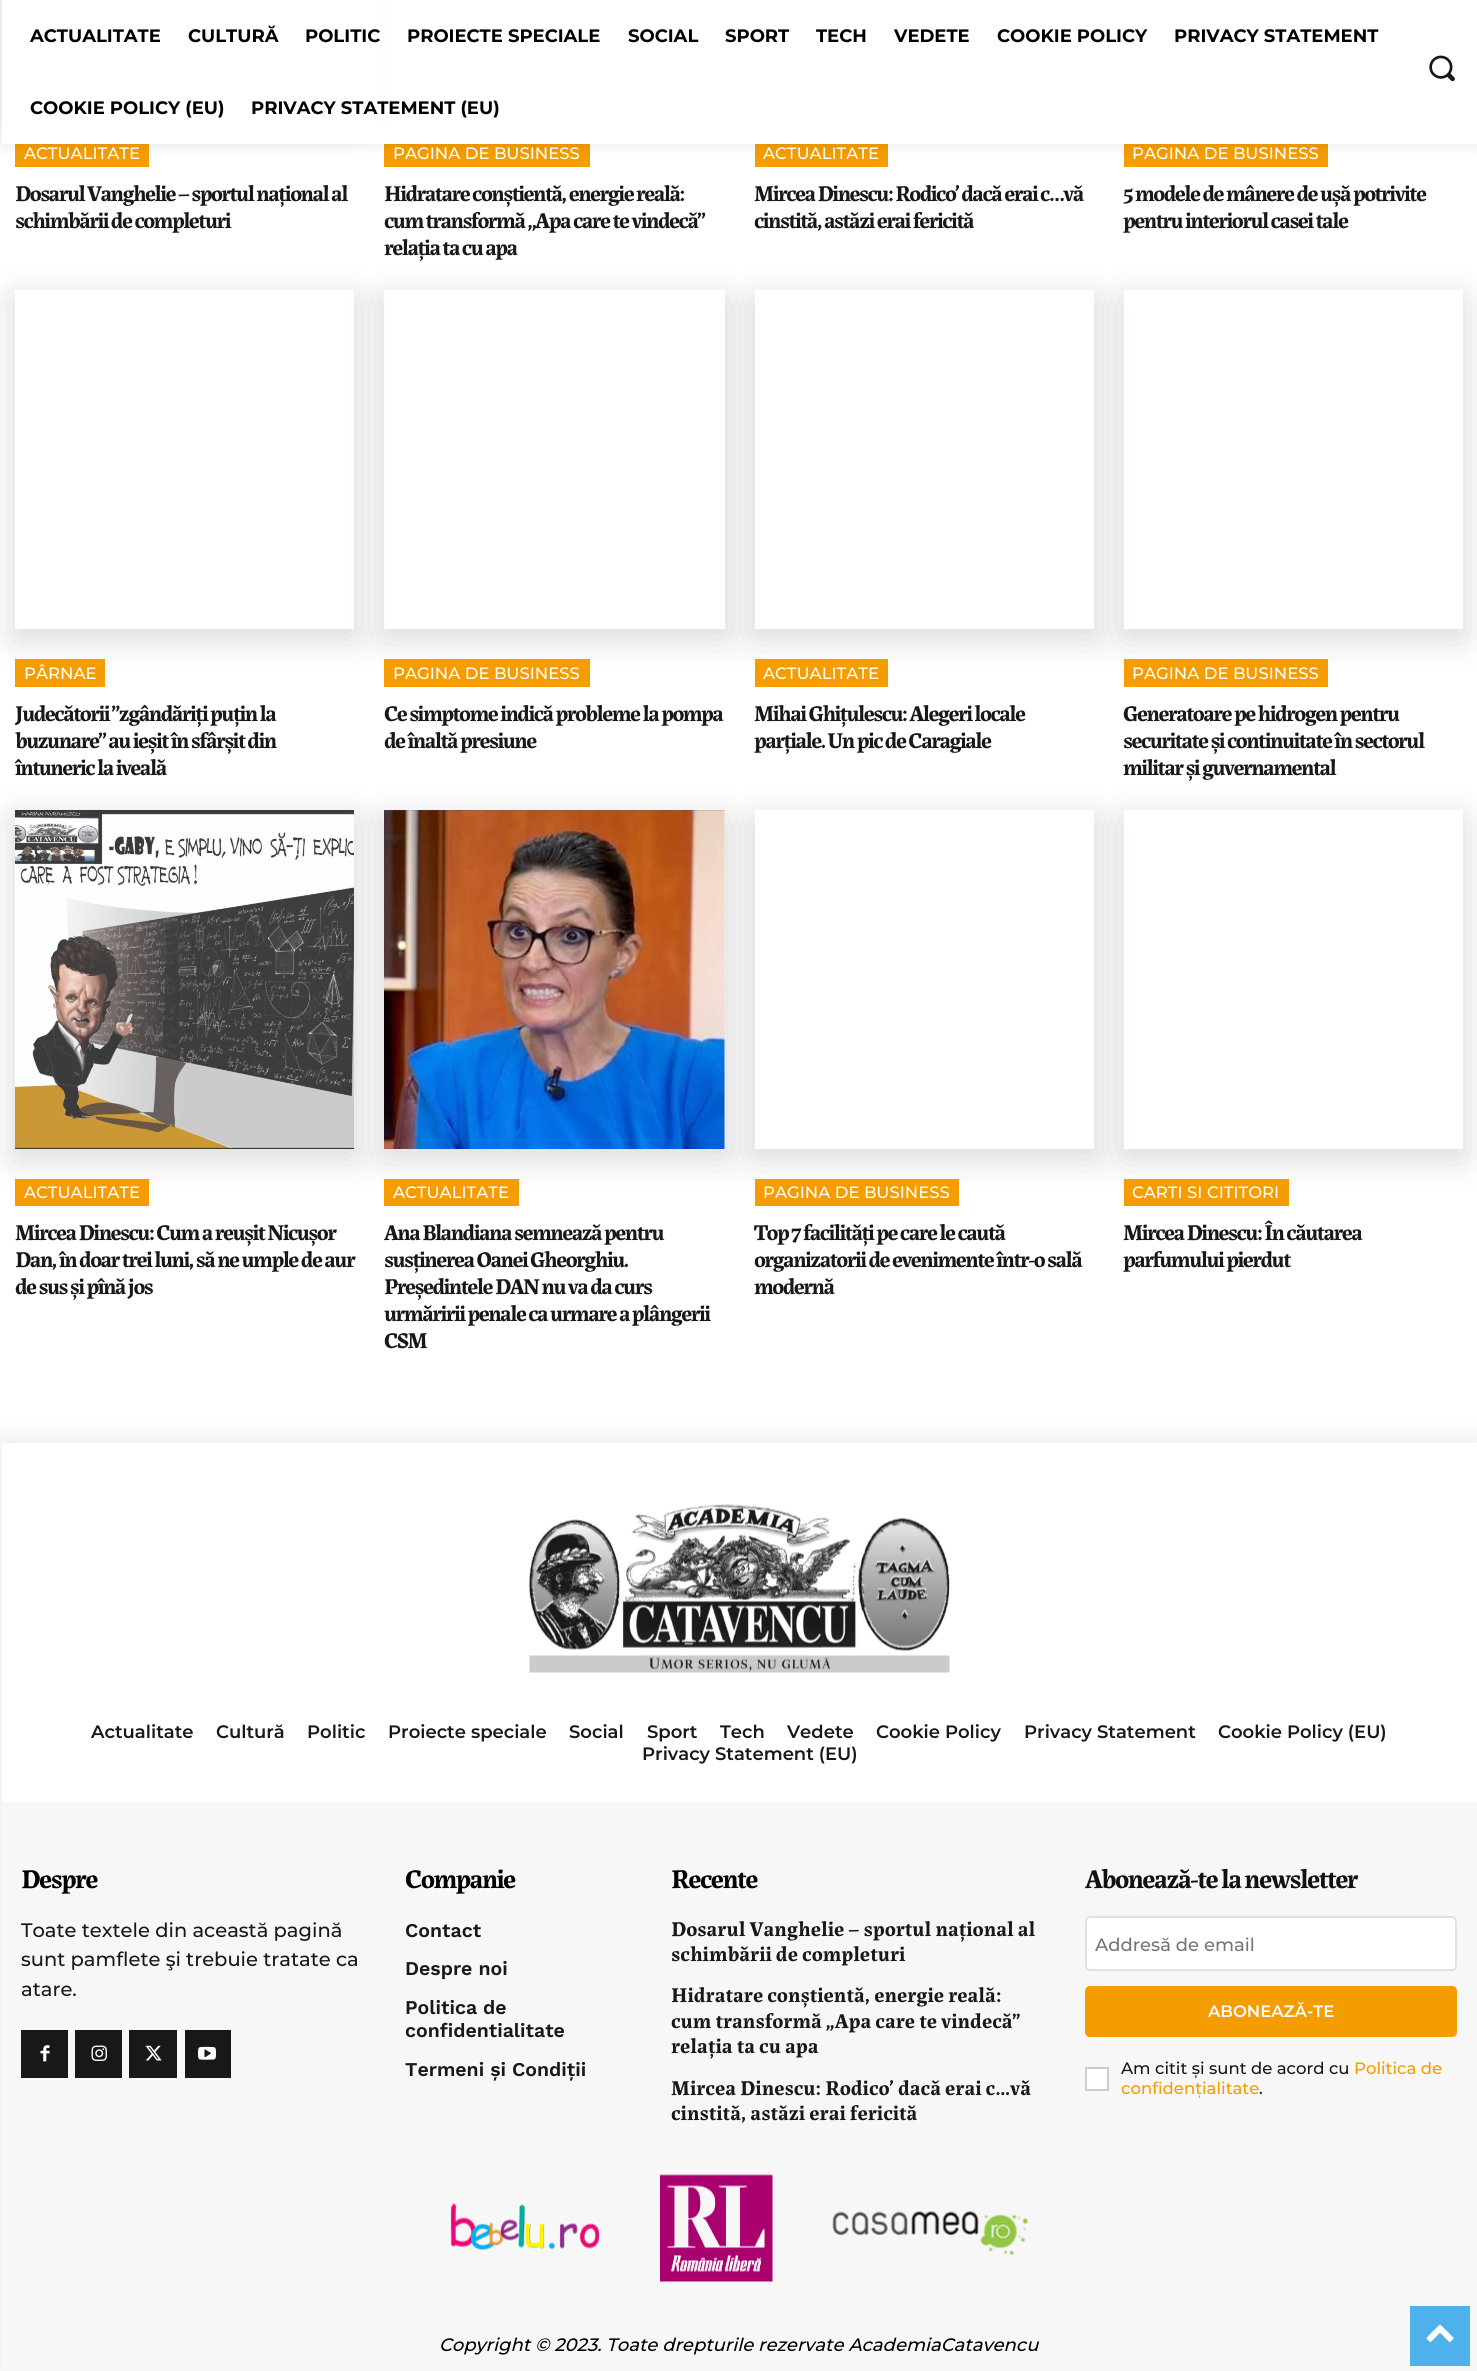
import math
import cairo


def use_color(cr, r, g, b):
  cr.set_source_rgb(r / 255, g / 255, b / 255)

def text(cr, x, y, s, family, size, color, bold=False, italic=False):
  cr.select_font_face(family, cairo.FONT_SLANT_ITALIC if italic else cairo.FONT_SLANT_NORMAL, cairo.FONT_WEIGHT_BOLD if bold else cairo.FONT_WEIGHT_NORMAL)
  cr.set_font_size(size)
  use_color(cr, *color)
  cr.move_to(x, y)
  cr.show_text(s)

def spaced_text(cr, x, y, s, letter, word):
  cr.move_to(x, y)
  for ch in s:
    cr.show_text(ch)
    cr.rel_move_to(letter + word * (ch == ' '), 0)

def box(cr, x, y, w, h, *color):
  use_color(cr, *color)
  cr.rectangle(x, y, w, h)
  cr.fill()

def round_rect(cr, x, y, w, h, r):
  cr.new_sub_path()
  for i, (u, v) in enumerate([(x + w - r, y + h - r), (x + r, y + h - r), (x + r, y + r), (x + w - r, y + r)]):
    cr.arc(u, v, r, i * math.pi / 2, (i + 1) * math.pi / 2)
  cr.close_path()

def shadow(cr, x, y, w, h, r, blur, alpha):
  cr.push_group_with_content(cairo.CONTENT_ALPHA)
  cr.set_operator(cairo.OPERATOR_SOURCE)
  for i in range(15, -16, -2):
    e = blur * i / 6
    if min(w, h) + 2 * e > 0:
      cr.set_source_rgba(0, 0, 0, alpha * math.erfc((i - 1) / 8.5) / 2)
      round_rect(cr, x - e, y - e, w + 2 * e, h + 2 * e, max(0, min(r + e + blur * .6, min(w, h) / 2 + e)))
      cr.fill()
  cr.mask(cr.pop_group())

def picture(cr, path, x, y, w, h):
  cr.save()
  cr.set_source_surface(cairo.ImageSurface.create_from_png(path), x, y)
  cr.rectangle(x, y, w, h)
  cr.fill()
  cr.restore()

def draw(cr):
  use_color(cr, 255, 255, 255)
  cr.paint()
  use_color(cr, 0, 0, 0)
  shadow(cr, 15, -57, 339, 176, 0, 19, 0.16)
  box(cr, 2, 0, 381, 144, 255, 255, 255)
  box(cr, 15, 144, 134, 23, 245, 156, 0)
  box(cr, 384, 144, 206, 23, 245, 156, 0)
  box(cr, 755, 144, 133, 23, 245, 156, 0)
  box(cr, 1124, 144, 204, 23, 245, 156, 0)
  cr.save()
  cr.set_fill_rule(cairo.FILL_RULE_EVEN_ODD)
  cr.new_path()
  cr.move_to(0, 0)
  cr.line_to(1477, 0)
  cr.line_to(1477, 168)
  cr.line_to(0, 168)
  cr.close_path()
  cr.move_to(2, 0)
  cr.line_to(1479, 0)
  cr.line_to(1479, 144)
  cr.line_to(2, 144)
  cr.close_path()
  cr.clip()
  use_color(cr, 0, 0, 0)
  shadow(cr, 2, 0, 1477, 144, 0, 7.5, 0.1)
  cr.restore()
  picture(cr, "img_01.png", 1429, 55, 26, 27)
  cr.save()
  cr.set_fill_rule(cairo.FILL_RULE_EVEN_ODD)
  cr.new_path()
  cr.move_to(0, 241)
  cr.line_to(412, 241)
  cr.line_to(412, 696)
  cr.line_to(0, 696)
  cr.close_path()
  cr.move_to(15, 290)
  cr.line_to(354, 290)
  cr.line_to(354, 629)
  cr.line_to(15, 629)
  cr.close_path()
  cr.clip()
  use_color(cr, 0, 0, 0)
  shadow(cr, 15, 299, 339, 339, 0, 19, 0.16)
  cr.restore()
  box(cr, 15, 659, 90, 28, 245, 156, 0)
  cr.save()
  cr.set_fill_rule(cairo.FILL_RULE_EVEN_ODD)
  cr.new_path()
  cr.move_to(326, 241)
  cr.line_to(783, 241)
  cr.line_to(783, 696)
  cr.line_to(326, 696)
  cr.close_path()
  cr.move_to(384, 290)
  cr.line_to(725, 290)
  cr.line_to(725, 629)
  cr.line_to(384, 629)
  cr.close_path()
  cr.clip()
  use_color(cr, 0, 0, 0)
  shadow(cr, 384, 299, 341, 339, 0, 19, 0.16)
  cr.restore()
  box(cr, 384, 659, 206, 28, 245, 156, 0)
  cr.save()
  cr.set_fill_rule(cairo.FILL_RULE_EVEN_ODD)
  cr.new_path()
  cr.move_to(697, 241)
  cr.line_to(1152, 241)
  cr.line_to(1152, 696)
  cr.line_to(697, 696)
  cr.close_path()
  cr.move_to(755, 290)
  cr.line_to(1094, 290)
  cr.line_to(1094, 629)
  cr.line_to(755, 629)
  cr.close_path()
  cr.clip()
  use_color(cr, 0, 0, 0)
  shadow(cr, 755, 299, 339, 339, 0, 19, 0.16)
  cr.restore()
  box(cr, 755, 659, 133, 28, 245, 156, 0)
  cr.save()
  cr.set_fill_rule(cairo.FILL_RULE_EVEN_ODD)
  cr.new_path()
  cr.move_to(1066, 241)
  cr.line_to(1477, 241)
  cr.line_to(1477, 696)
  cr.line_to(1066, 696)
  cr.close_path()
  cr.move_to(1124, 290)
  cr.line_to(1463, 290)
  cr.line_to(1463, 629)
  cr.line_to(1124, 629)
  cr.close_path()
  cr.clip()
  use_color(cr, 0, 0, 0)
  shadow(cr, 1124, 299, 339, 339, 0, 19, 0.16)
  cr.restore()
  box(cr, 1124, 659, 204, 28, 245, 156, 0)
  use_color(cr, 0, 0, 0)
  shadow(cr, 15, 819, 339, 339, 0, 19, 0.16)
  picture(cr, "img_02.png", 15, 810, 339, 339)
  box(cr, 15, 1179, 134, 27, 245, 156, 0)
  use_color(cr, 0, 0, 0)
  shadow(cr, 384, 819, 341, 339, 0, 19, 0.16)
  picture(cr, "img_03.png", 384, 810, 341, 339)
  box(cr, 384, 1179, 135, 27, 245, 156, 0)
  cr.save()
  cr.set_fill_rule(cairo.FILL_RULE_EVEN_ODD)
  cr.new_path()
  cr.move_to(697, 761)
  cr.line_to(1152, 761)
  cr.line_to(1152, 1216)
  cr.line_to(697, 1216)
  cr.close_path()
  cr.move_to(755, 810)
  cr.line_to(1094, 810)
  cr.line_to(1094, 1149)
  cr.line_to(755, 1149)
  cr.close_path()
  cr.clip()
  use_color(cr, 0, 0, 0)
  shadow(cr, 755, 819, 339, 339, 0, 19, 0.16)
  cr.restore()
  box(cr, 755, 1179, 204, 27, 245, 156, 0)
  cr.save()
  cr.set_fill_rule(cairo.FILL_RULE_EVEN_ODD)
  cr.new_path()
  cr.move_to(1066, 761)
  cr.line_to(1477, 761)
  cr.line_to(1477, 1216)
  cr.line_to(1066, 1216)
  cr.close_path()
  cr.move_to(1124, 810)
  cr.line_to(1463, 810)
  cr.line_to(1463, 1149)
  cr.line_to(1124, 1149)
  cr.close_path()
  cr.clip()
  use_color(cr, 0, 0, 0)
  shadow(cr, 1124, 819, 339, 339, 0, 19, 0.16)
  cr.restore()
  box(cr, 1124, 1179, 165, 27, 245, 156, 0)
  picture(cr, "img_04.png", 529, 1504, 421, 169)
  box(cr, 2, 1802, 1475, 569, 247, 247, 247)
  box(cr, 21, 2030, 47, 48, 24, 24, 23)
  picture(cr, "img_05.png", 40, 2045, 10, 17)
  box(cr, 75, 2030, 47, 48, 24, 24, 23)
  picture(cr, "img_06.png", 91, 2045, 16, 16)
  box(cr, 129, 2030, 48, 48, 24, 24, 23)
  picture(cr, "img_07.png", 145, 2045, 17, 16)
  box(cr, 185, 2030, 46, 48, 24, 24, 23)
  picture(cr, "img_08.png", 198, 2046, 18, 14)
  use_color(cr, 255, 255, 255)
  round_rect(cr, 1086, 1917, 370, 53, 4)
  cr.fill_preserve()
  use_color(cr, 225, 225, 225)
  cr.stroke()
  use_color(cr, 245, 156, 0)
  round_rect(cr, 1085, 1986, 372, 51, 5)
  cr.fill()
  use_color(cr, 255, 255, 255)
  cr.rectangle(1086, 2068, 22, 22)
  cr.fill_preserve()
  use_color(cr, 204, 204, 204)
  cr.stroke()
  picture(cr, "img_09.png", 450, 2203, 150, 47)
  picture(cr, "img_10.png", 660, 2174, 113, 108)
  picture(cr, "img_11.png", 832, 2211, 196, 44)
  cr.save()
  cr.set_fill_rule(cairo.FILL_RULE_EVEN_ODD)
  cr.new_path()
  cr.move_to(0, 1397)
  cr.line_to(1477, 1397)
  cr.line_to(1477, 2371)
  cr.line_to(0, 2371)
  cr.close_path()
  cr.move_to(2, 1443)
  cr.line_to(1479, 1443)
  cr.line_to(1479, 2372)
  cr.line_to(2, 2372)
  cr.close_path()
  cr.clip()
  use_color(cr, 0, 0, 0)
  shadow(cr, 2, 1443, 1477, 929, 0, 15, 0.1)
  cr.restore()
  box(cr, 1410, 2306, 60, 60, 77, 178, 236)
  picture(cr, "img_12.png", 1426, 2324, 28, 18)
  text(cr, 30, 42, "ACTUALITATE", "Montserrat", 18, (0, 0, 0), bold=True)
  text(cr, 188, 42, "CULTURĂ", "Montserrat", 18, (0, 0, 0), bold=True)
  text(cr, 305, 42, "POLITIC", "Montserrat", 18, (0, 0, 0), bold=True)
  text(cr, 407, 42, "PROIECTE SPECIALE", "Montserrat", 18, (0, 0, 0), bold=True)
  text(cr, 628, 42, "SOCIAL", "Montserrat", 18, (0, 0, 0), bold=True)
  text(cr, 725, 42, "SPORT", "Montserrat", 18, (0, 0, 0), bold=True)
  text(cr, 816, 42, "TECH", "Montserrat", 18, (0, 0, 0), bold=True)
  text(cr, 894, 42, "VEDETE", "Montserrat", 18, (0, 0, 0), bold=True)
  text(cr, 997, 42, "COOKIE POLICY", "Montserrat", 18, (0, 0, 0), bold=True)
  text(cr, 1174, 42, "PRIVACY STATEMENT", "Montserrat", 18, (0, 0, 0), bold=True)
  text(cr, 30, 114, "COOKIE POLICY (EU)", "Montserrat", 18, (0, 0, 0), bold=True)
  text(cr, 251, 114, "PRIVACY STATEMENT (EU)", "Montserrat", 18, (0, 0, 0), bold=True)
  text(cr, 24, 159, "ACTUALITATE", "Montserrat Medium", 16.5, (255, 255, 255))
  cr.select_font_face("Labrada", cairo.FONT_SLANT_NORMAL, cairo.FONT_WEIGHT_BOLD)
  cr.set_font_size(22.5)
  use_color(cr, 24, 24, 23)
  spaced_text(cr, 15, 201, "Dosarul Vanghelie – sportul național al", -1.5, 0)
  spaced_text(cr, 15, 228, "schimbării de completuri", -1.5, 0)
  text(cr, 393, 159, "PAGINA DE BUSINESS", "Montserrat Medium", 16.5, (255, 255, 255))
  cr.select_font_face("Labrada", cairo.FONT_SLANT_NORMAL, cairo.FONT_WEIGHT_BOLD)
  cr.set_font_size(22.5)
  use_color(cr, 24, 24, 23)
  spaced_text(cr, 384, 201, "Hidratare conștientă, energie reală:", -1.5, 0)
  spaced_text(cr, 384, 228, "cum transformă „Apa care te vindecă”", -1.5, 0)
  spaced_text(cr, 384, 255, "relația ta cu apa", -1.5, 0)
  text(cr, 763, 159, "ACTUALITATE", "Montserrat Medium", 16.5, (255, 255, 255))
  cr.select_font_face("Labrada", cairo.FONT_SLANT_NORMAL, cairo.FONT_WEIGHT_BOLD)
  cr.set_font_size(22.5)
  use_color(cr, 24, 24, 23)
  spaced_text(cr, 754, 201, "Mircea Dinescu: Rodico’ dacă erai c…vă", -1.5, 0)
  spaced_text(cr, 754, 228, "cinstită, astăzi erai fericită", -1.5, 0)
  text(cr, 1132, 159, "PAGINA DE BUSINESS", "Montserrat Medium", 16.5, (255, 255, 255))
  cr.select_font_face("Labrada", cairo.FONT_SLANT_NORMAL, cairo.FONT_WEIGHT_BOLD)
  cr.set_font_size(22.5)
  use_color(cr, 24, 24, 23)
  spaced_text(cr, 1123, 201, "5 modele de mânere de ușă potrivite", -1.5, 0)
  spaced_text(cr, 1123, 228, "pentru interiorul casei tale", -1.5, 0)
  text(cr, 24, 679, "PÂRNAE", "Montserrat Medium", 16.5, (255, 255, 255))
  cr.select_font_face("Labrada", cairo.FONT_SLANT_NORMAL, cairo.FONT_WEIGHT_BOLD)
  cr.set_font_size(22.5)
  use_color(cr, 24, 24, 23)
  spaced_text(cr, 15, 721, "Judecătorii ”zgândăriți puțin la", -1.5, 0)
  spaced_text(cr, 15, 748, "buzunare” au ieșit în sfârșit din", -1.5, 0)
  spaced_text(cr, 15, 775, "întuneric la iveală", -1.5, 0)
  text(cr, 393, 679, "PAGINA DE BUSINESS", "Montserrat Medium", 16.5, (255, 255, 255))
  cr.select_font_face("Labrada", cairo.FONT_SLANT_NORMAL, cairo.FONT_WEIGHT_BOLD)
  cr.set_font_size(22.5)
  use_color(cr, 24, 24, 23)
  spaced_text(cr, 384, 721, "Ce simptome indică probleme la pompa", -1.5, 0)
  spaced_text(cr, 384, 748, "de înaltă presiune", -1.5, 0)
  text(cr, 763, 679, "ACTUALITATE", "Montserrat Medium", 16.5, (255, 255, 255))
  cr.select_font_face("Labrada", cairo.FONT_SLANT_NORMAL, cairo.FONT_WEIGHT_BOLD)
  cr.set_font_size(22.5)
  use_color(cr, 24, 24, 23)
  spaced_text(cr, 754, 721, "Mihai Ghițulescu: Alegeri locale", -1.5, 0)
  spaced_text(cr, 754, 748, "parțiale. Un pic de Caragiale", -1.5, 0)
  text(cr, 1132, 679, "PAGINA DE BUSINESS", "Montserrat Medium", 16.5, (255, 255, 255))
  cr.select_font_face("Labrada", cairo.FONT_SLANT_NORMAL, cairo.FONT_WEIGHT_BOLD)
  cr.set_font_size(22.5)
  use_color(cr, 24, 24, 23)
  spaced_text(cr, 1123, 721, "Generatoare pe hidrogen pentru", -1.5, 0)
  spaced_text(cr, 1123, 748, "securitate și continuitate în sectorul", -1.5, 0)
  spaced_text(cr, 1123, 775, "militar și guvernamental", -1.5, 0)
  text(cr, 24, 1198, "ACTUALITATE", "Montserrat Medium", 16.5, (255, 255, 255))
  cr.select_font_face("Labrada", cairo.FONT_SLANT_NORMAL, cairo.FONT_WEIGHT_BOLD)
  cr.set_font_size(22.5)
  use_color(cr, 24, 24, 23)
  spaced_text(cr, 15, 1240, "Mircea Dinescu: Cum a reușit Nicușor", -1.5, 0)
  spaced_text(cr, 15, 1267, "Dan, în doar trei luni, să ne umple de aur", -1.5, 0)
  spaced_text(cr, 15, 1294, "de sus și pînă jos", -1.5, 0)
  text(cr, 393, 1198, "ACTUALITATE", "Montserrat Medium", 16.5, (255, 255, 255))
  cr.select_font_face("Labrada", cairo.FONT_SLANT_NORMAL, cairo.FONT_WEIGHT_BOLD)
  cr.set_font_size(22.5)
  use_color(cr, 24, 24, 23)
  spaced_text(cr, 384, 1240, "Ana Blandiana semnează pentru", -1.5, 0)
  spaced_text(cr, 384, 1267, "susținerea Oanei Gheorghiu.", -1.5, 0)
  spaced_text(cr, 384, 1294, "Președintele DAN nu va da curs", -1.5, 0)
  spaced_text(cr, 384, 1321, "urmăririi penale ca urmare a plângerii", -1.5, 0)
  spaced_text(cr, 384, 1348, "CSM", -1.5, 0)
  text(cr, 763, 1198, "PAGINA DE BUSINESS", "Montserrat Medium", 16.5, (255, 255, 255))
  cr.select_font_face("Labrada", cairo.FONT_SLANT_NORMAL, cairo.FONT_WEIGHT_BOLD)
  cr.set_font_size(22.5)
  use_color(cr, 24, 24, 23)
  spaced_text(cr, 754, 1240, "Top 7 facilități pe care le caută", -1.5, 0)
  spaced_text(cr, 754, 1267, "organizatorii de evenimente într-o sală", -1.5, 0)
  spaced_text(cr, 754, 1294, "modernă", -1.5, 0)
  text(cr, 1132, 1198, "CARTI SI CITITORI", "Montserrat Medium", 16.5, (255, 255, 255))
  cr.select_font_face("Labrada", cairo.FONT_SLANT_NORMAL, cairo.FONT_WEIGHT_BOLD)
  cr.set_font_size(22.5)
  use_color(cr, 24, 24, 23)
  spaced_text(cr, 1123, 1240, "Mircea Dinescu: În căutarea", -1.5, 0)
  spaced_text(cr, 1123, 1267, "parfumului pierdut", -1.5, 0)
  text(cr, 91, 1738, "Actualitate", "Montserrat SemiBold", 18, (24, 24, 23))
  text(cr, 216, 1738, "Cultură", "Montserrat SemiBold", 18, (24, 24, 23))
  text(cr, 307, 1738, "Politic", "Montserrat SemiBold", 18, (24, 24, 23))
  text(cr, 388, 1738, "Proiecte speciale", "Montserrat SemiBold", 18, (24, 24, 23))
  text(cr, 569, 1738, "Social", "Montserrat SemiBold", 18, (24, 24, 23))
  text(cr, 647, 1738, "Sport", "Montserrat SemiBold", 18, (24, 24, 23))
  text(cr, 720, 1738, "Tech", "Montserrat SemiBold", 18, (24, 24, 23))
  text(cr, 787, 1738, "Vedete", "Montserrat SemiBold", 18, (24, 24, 23))
  text(cr, 876, 1738, "Cookie Policy", "Montserrat SemiBold", 18, (24, 24, 23))
  text(cr, 1024, 1738, "Privacy Statement", "Montserrat SemiBold", 18, (24, 24, 23))
  text(cr, 1218, 1738, "Cookie Policy (EU)", "Montserrat SemiBold", 18, (24, 24, 23))
  text(cr, 642, 1760, "Privacy Statement (EU)", "Montserrat SemiBold", 18, (24, 24, 23))
  cr.select_font_face("Labrada", cairo.FONT_SLANT_NORMAL, cairo.FONT_WEIGHT_BOLD)
  cr.set_font_size(27)
  use_color(cr, 0, 0, 0)
  spaced_text(cr, 21, 1888, "Despre", -1.5, 0)
  text(cr, 21, 1937, "Toate textele din această pagină", "Montserrat Medium", 19.5, (24, 24, 23))
  text(cr, 21, 1966, "sunt pamflete şi trebuie tratate ca", "Montserrat Medium", 19.5, (24, 24, 23))
  text(cr, 21, 1996, "atare.", "Montserrat Medium", 19.5, (24, 24, 23))
  cr.select_font_face("Labrada", cairo.FONT_SLANT_NORMAL, cairo.FONT_WEIGHT_BOLD)
  cr.set_font_size(27)
  use_color(cr, 0, 0, 0)
  spaced_text(cr, 405, 1888, "Companie", -1.5, 0)
  text(cr, 405, 1937, "Contact", "Work Sans SemiBold", 19.5, (24, 24, 23))
  text(cr, 405, 1975, "Despre noi", "Work Sans SemiBold", 19.5, (24, 24, 23))
  text(cr, 405, 2014, "Politica de", "Work Sans SemiBold", 19.5, (24, 24, 23))
  text(cr, 405, 2037, "confidentialitate", "Work Sans SemiBold", 19.5, (24, 24, 23))
  text(cr, 405, 2076, "Termeni și Condiții", "Work Sans SemiBold", 19.5, (24, 24, 23))
  cr.select_font_face("Labrada", cairo.FONT_SLANT_NORMAL, cairo.FONT_WEIGHT_BOLD)
  cr.set_font_size(27)
  use_color(cr, 0, 0, 0)
  spaced_text(cr, 671, 1888, "Recente", -1.5, 0)
  text(cr, 671, 1936, "Dosarul Vanghelie – sportul național al", "Labrada", 21, (24, 24, 23), bold=True)
  text(cr, 671, 1961, "schimbării de completuri", "Labrada", 21, (24, 24, 23), bold=True)
  text(cr, 671, 2002, "Hidratare conștientă, energie reală:", "Labrada", 21, (24, 24, 23), bold=True)
  text(cr, 671, 2028, "cum transformă „Apa care te vindecă”", "Labrada", 21, (24, 24, 23), bold=True)
  text(cr, 671, 2053, "relația ta cu apa", "Labrada", 21, (24, 24, 23), bold=True)
  text(cr, 671, 2095, "Mircea Dinescu: Rodico’ dacă erai c…vă", "Labrada", 21, (24, 24, 23), bold=True)
  text(cr, 671, 2120, "cinstită, astăzi erai fericită", "Labrada", 21, (24, 24, 23), bold=True)
  cr.set_font_size(27)
  use_color(cr, 17, 17, 17)
  spaced_text(cr, 1085, 1888, "Abonează-te la newsletter", -1.5, 0)
  text(cr, 1095, 1951, "Addresă de email", "Montserrat Medium", 18, (117, 117, 117))
  text(cr, 1208, 2017, "ABONEAZĂ-TE", "Montserrat SemiBold", 16.5, (255, 255, 255))
  text(cr, 1121, 2074, "Am citit și sunt de acord cu", "Montserrat Medium", 16.5, (24, 24, 23))
  text(cr, 1354, 2074, "Politica de", "Montserrat Medium", 16.5, (245, 156, 0))
  text(cr, 1121, 2094, "confidențialitate", "Montserrat Medium", 16.5, (245, 156, 0))
  text(cr, 1259, 2094, ".", "Montserrat Medium", 16.5, (24, 24, 23))
  text(cr, 439, 2351, "Copyright © 2023. Toate drepturile rezervate AcademiaCatavencu", "Montserrat Medium", 18, (0, 0, 0), italic=True)


surface = cairo.ImageSurface(cairo.FORMAT_RGB24, 1477, 2371)
cr = cairo.Context(surface)
options = cairo.FontOptions()
options.set_hint_metrics(cairo.HINT_METRICS_OFF)
options.set_hint_style(cairo.HINT_STYLE_NONE)
cr.set_font_options(options)
cr.set_miter_limit(4)
draw(cr)
surface.write_to_png("out.png")
